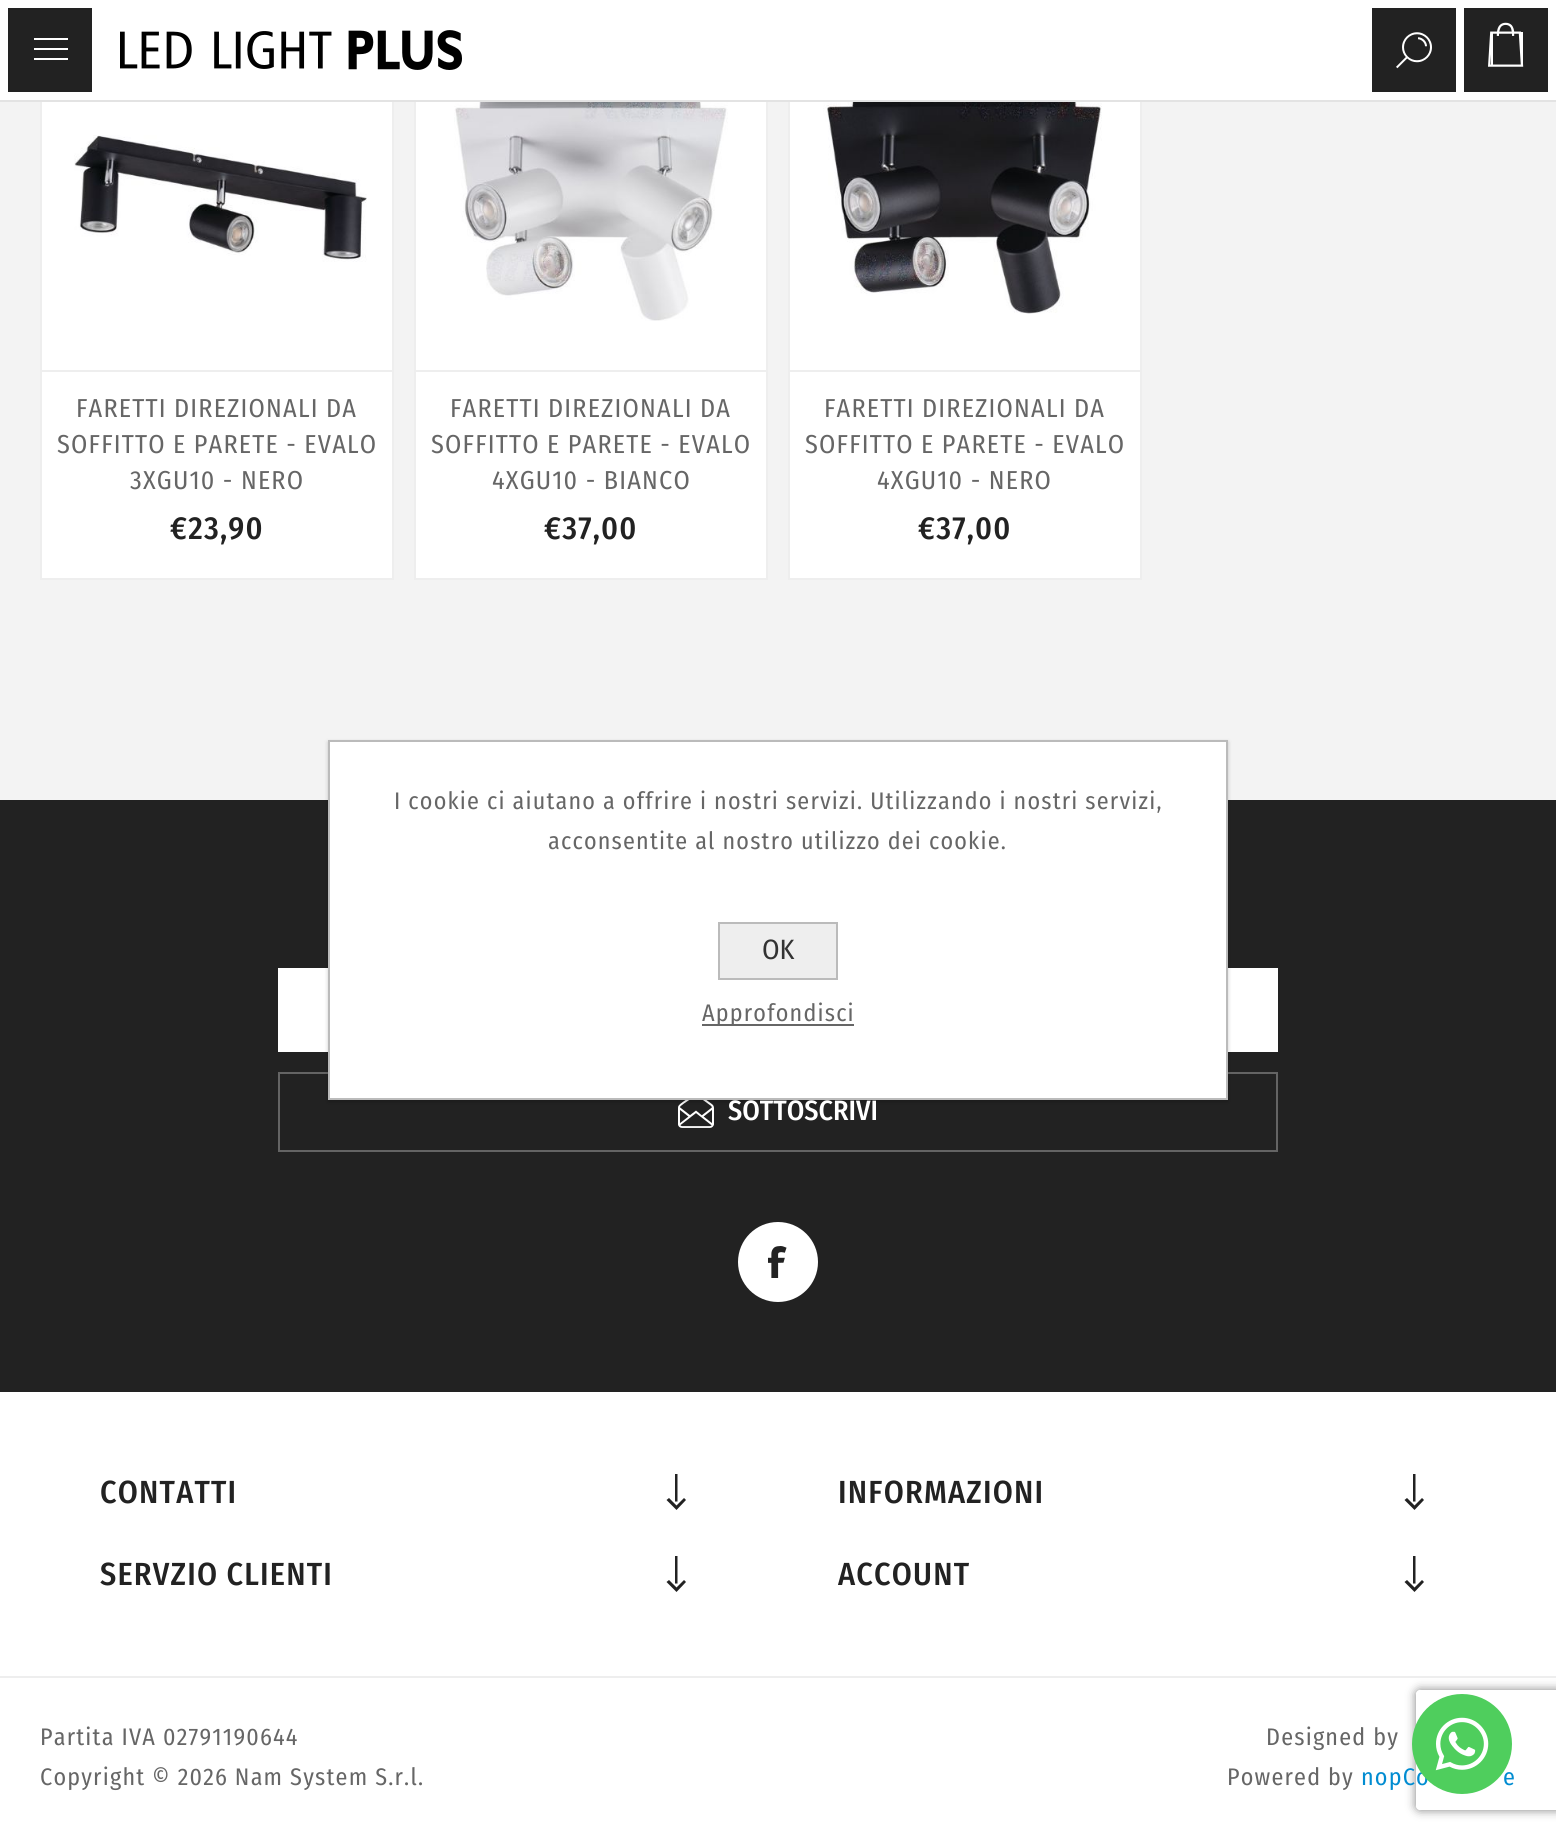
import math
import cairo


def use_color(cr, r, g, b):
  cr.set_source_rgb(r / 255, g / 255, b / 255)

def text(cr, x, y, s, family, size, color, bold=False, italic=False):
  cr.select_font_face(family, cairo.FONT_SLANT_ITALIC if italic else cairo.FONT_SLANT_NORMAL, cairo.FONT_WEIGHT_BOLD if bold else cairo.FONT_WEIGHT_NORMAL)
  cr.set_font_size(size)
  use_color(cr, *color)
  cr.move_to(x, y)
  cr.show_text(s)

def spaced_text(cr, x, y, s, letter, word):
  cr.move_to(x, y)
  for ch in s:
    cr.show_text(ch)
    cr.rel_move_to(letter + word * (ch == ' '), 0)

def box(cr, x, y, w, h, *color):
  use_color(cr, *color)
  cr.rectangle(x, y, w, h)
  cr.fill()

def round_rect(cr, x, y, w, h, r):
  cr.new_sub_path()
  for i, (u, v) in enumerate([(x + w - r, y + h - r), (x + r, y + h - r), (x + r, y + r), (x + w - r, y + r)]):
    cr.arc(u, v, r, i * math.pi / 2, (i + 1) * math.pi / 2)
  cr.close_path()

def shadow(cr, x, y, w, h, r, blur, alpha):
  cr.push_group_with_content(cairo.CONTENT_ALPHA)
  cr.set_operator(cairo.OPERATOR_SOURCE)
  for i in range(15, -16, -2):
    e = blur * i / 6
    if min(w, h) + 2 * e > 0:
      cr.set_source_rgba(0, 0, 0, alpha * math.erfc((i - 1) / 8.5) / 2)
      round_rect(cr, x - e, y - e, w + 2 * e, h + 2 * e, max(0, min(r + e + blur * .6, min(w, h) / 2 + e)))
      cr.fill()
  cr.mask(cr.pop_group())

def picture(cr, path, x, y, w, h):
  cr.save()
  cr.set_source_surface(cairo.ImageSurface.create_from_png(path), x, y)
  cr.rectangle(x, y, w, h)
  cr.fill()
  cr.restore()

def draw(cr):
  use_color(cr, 243, 243, 243)
  cr.paint()
  box(cr, 42, 102, 350, 476, 255, 255, 255)
  cr.rectangle(41, 19, 352, 560)
  use_color(cr, 238, 238, 238)
  cr.stroke()
  box(cr, 416, 102, 350, 476, 255, 255, 255)
  cr.rectangle(415, 19, 352, 560)
  use_color(cr, 238, 238, 238)
  cr.stroke()
  box(cr, 790, 102, 350, 476, 255, 255, 255)
  cr.rectangle(789, 19, 352, 560)
  use_color(cr, 238, 238, 238)
  cr.stroke()
  box(cr, 0, 100, 1556, 2, 227, 227, 227)
  box(cr, 100, 0, 1356, 100, 255, 255, 255)
  picture(cr, "img_01.png", 120, 30, 342, 40)
  box(cr, 1372, 8, 84, 84, 34, 34, 34)
  picture(cr, "img_02.png", 1396, 32, 36, 37)
  cr.rectangle(4, 4, 92, 92)
  cr.fill_preserve()
  use_color(cr, 255, 255, 255)
  cr.set_line_width(8)
  cr.stroke()
  box(cr, 34, 38, 34, 2, 255, 255, 255)
  box(cr, 34, 48, 34, 2, 255, 255, 255)
  box(cr, 34, 58, 34, 2, 255, 255, 255)
  use_color(cr, 34, 34, 34)
  cr.rectangle(1460, 4, 92, 92)
  cr.fill_preserve()
  use_color(cr, 255, 255, 255)
  cr.stroke()
  box(cr, 1491, 32, 2, 34, 255, 255, 255)
  box(cr, 1521, 32, 2, 34, 255, 255, 255)
  picture(cr, "img_03.png", 1488, 22, 36, 45)
  box(cr, 42, 370, 350, 2, 238, 238, 238)
  picture(cr, "img_04.png", 74, 135, 293, 127)
  box(cr, 416, 370, 350, 2, 238, 238, 238)
  picture(cr, "img_05.png", 454, 102, 274, 219)
  box(cr, 790, 370, 350, 2, 238, 238, 238)
  picture(cr, "img_06.png", 823, 102, 279, 212)
  box(cr, 0, 1392, 1556, 284, 255, 255, 255)
  box(cr, 0, 800, 1556, 592, 34, 34, 34)
  box(cr, 278, 968, 1000, 84, 255, 255, 255)
  picture(cr, "img_07.png", 678, 1100, 36, 28)
  cr.rectangle(279, 1073, 998, 78)
  use_color(cr, 100, 100, 100)
  cr.set_line_width(2)
  cr.stroke()
  use_color(cr, 255, 255, 255)
  cr.arc(778, 1262, 40, 0, 2 * math.pi)
  cr.fill()
  picture(cr, "img_08.png", 768, 1246, 19, 32)
  use_color(cr, 34, 34, 34)
  cr.new_path()
  cr.move_to(677.5, 1501.5)
  cr.line_to(675, 1501.5)
  cr.line_to(675, 1474)
  cr.line_to(677.5, 1474)
  cr.close_path()
  cr.move_to(686, 1500)
  cr.line_to(684, 1498)
  cr.line_to(676.5, 1505.5)
  cr.line_to(669, 1498)
  cr.line_to(666.5, 1500)
  cr.line_to(676.5, 1510)
  cr.close_path()
  cr.fill()
  cr.new_path()
  cr.move_to(1415.5, 1501.5)
  cr.line_to(1413, 1501.5)
  cr.line_to(1413, 1474)
  cr.line_to(1415.5, 1474)
  cr.close_path()
  cr.move_to(1424, 1500)
  cr.line_to(1422, 1498)
  cr.line_to(1414.5, 1505.5)
  cr.line_to(1407, 1498)
  cr.line_to(1404.5, 1500)
  cr.line_to(1414.5, 1510)
  cr.close_path()
  cr.fill()
  cr.new_path()
  cr.move_to(677.5, 1583.5)
  cr.line_to(675, 1583.5)
  cr.line_to(675, 1556)
  cr.line_to(677.5, 1556)
  cr.close_path()
  cr.move_to(686, 1582)
  cr.line_to(684, 1580)
  cr.line_to(676.5, 1587.5)
  cr.line_to(669, 1580)
  cr.line_to(666.5, 1582)
  cr.line_to(676.5, 1592)
  cr.close_path()
  cr.fill()
  cr.new_path()
  cr.move_to(1415.5, 1583.5)
  cr.line_to(1413, 1583.5)
  cr.line_to(1413, 1556)
  cr.line_to(1415.5, 1556)
  cr.close_path()
  cr.move_to(1424, 1582)
  cr.line_to(1422, 1580)
  cr.line_to(1414.5, 1587.5)
  cr.line_to(1407, 1580)
  cr.line_to(1404.5, 1582)
  cr.line_to(1414.5, 1592)
  cr.close_path()
  cr.fill()
  box(cr, 0, 1678, 1556, 160, 255, 255, 255)
  box(cr, 0, 1676, 1556, 2, 238, 238, 238)
  use_color(cr, 0, 0, 0)
  shadow(cr, 328, 742, 900, 360, 0, 2, 0.2)
  use_color(cr, 255, 255, 255)
  cr.rectangle(329, 741, 898, 358)
  cr.fill_preserve()
  use_color(cr, 187, 187, 187)
  cr.stroke()
  use_color(cr, 238, 238, 238)
  cr.rectangle(719, 923, 118, 56)
  cr.fill_preserve()
  use_color(cr, 187, 187, 187)
  cr.stroke()
  box(cr, 702, 1024, 152, 2, 102, 102, 102)
  cr.save()
  cr.set_fill_rule(cairo.FILL_RULE_EVEN_ODD)
  cr.new_path()
  cr.move_to(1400, 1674)
  cr.line_to(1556, 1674)
  cr.line_to(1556, 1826)
  cr.line_to(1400, 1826)
  cr.close_path()
  cr.move_to(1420, 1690)
  cr.line_to(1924, 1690)
  cr.curve_to(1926, 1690, 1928, 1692, 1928, 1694)
  cr.line_to(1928, 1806)
  cr.curve_to(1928, 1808, 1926, 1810, 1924, 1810)
  cr.line_to(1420, 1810)
  cr.curve_to(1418, 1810, 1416, 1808, 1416, 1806)
  cr.line_to(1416, 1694)
  cr.curve_to(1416, 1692, 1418, 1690, 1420, 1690)
  cr.close_path()
  cr.clip()
  use_color(cr, 128, 128, 128)
  shadow(cr, 1416, 1690, 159, 120, 4, 5, 1)
  cr.restore()
  cr.select_font_face("Fira Sans Condensed")
  cr.set_font_size(26)
  spaced_text(cr, 76, 417, "FARETTI DIREZIONALI DA", 1.2, 0)
  spaced_text(cr, 57, 453, "SOFFITTO E PARETE - EVALO", 1.2, 0)
  spaced_text(cr, 130, 489, "3XGU10 - NERO", 1.2, 0)
  cr.select_font_face("Fira Sans Condensed Medium")
  cr.set_font_size(32)
  use_color(cr, 34, 34, 34)
  spaced_text(cr, 170, 539, "€23,90", 1.2, 0)
  cr.select_font_face("Fira Sans Condensed")
  cr.set_font_size(26)
  use_color(cr, 102, 102, 102)
  spaced_text(cr, 450, 417, "FARETTI DIREZIONALI DA", 1.2, 0)
  spaced_text(cr, 431, 453, "SOFFITTO E PARETE - EVALO", 1.2, 0)
  spaced_text(cr, 492, 489, "4XGU10 - BIANCO", 1.2, 0)
  cr.select_font_face("Fira Sans Condensed Medium")
  cr.set_font_size(32)
  use_color(cr, 34, 34, 34)
  spaced_text(cr, 544, 539, "€37,00", 1.2, 0)
  cr.select_font_face("Fira Sans Condensed")
  cr.set_font_size(26)
  use_color(cr, 102, 102, 102)
  spaced_text(cr, 824, 417, "FARETTI DIREZIONALI DA", 1.2, 0)
  spaced_text(cr, 805, 453, "SOFFITTO E PARETE - EVALO", 1.2, 0)
  spaced_text(cr, 877, 489, "4XGU10 - NERO", 1.2, 0)
  cr.select_font_face("Fira Sans Condensed Medium")
  cr.set_font_size(32)
  use_color(cr, 34, 34, 34)
  spaced_text(cr, 918, 539, "€37,00", 1.2, 0)
  text(cr, 728, 1120, "SOTTOSCRIVI", "Fira Sans Condensed Medium", 28, (255, 255, 255))
  cr.set_font_size(32)
  use_color(cr, 34, 34, 34)
  spaced_text(cr, 100, 1503, "CONTATTI", 1.2, 0)
  spaced_text(cr, 838, 1503, "INFORMAZIONI", 1.2, 0)
  spaced_text(cr, 100, 1585, "SERVZIO CLIENTI", 1.2, 0)
  spaced_text(cr, 838, 1585, "ACCOUNT", 1.2, 0)
  cr.select_font_face("Fira Sans Condensed")
  cr.set_font_size(24)
  use_color(cr, 102, 102, 102)
  spaced_text(cr, 40, 1745, "Partita IVA 02791190644", 1.2, 0)
  spaced_text(cr, 40, 1785, "Copyright © 2026 Nam System S.r.l.", 1.2, 0)
  spaced_text(cr, 1266, 1745, "Designed by", 1.2, 0)
  spaced_text(cr, 1227, 1785, "Powered by", 1.2, 0)
  use_color(cr, 1, 140, 209)
  spaced_text(cr, 1361, 1785, "nopCo", 1.2, 0)
  spaced_text(cr, 1503, 1785, "e", 1.2, 0)
  use_color(cr, 102, 102, 102)
  spaced_text(cr, 394, 809, "I cookie ci aiutano a offrire i nostri servizi. Utilizzando i nostri servizi,", 1.2, 0)
  spaced_text(cr, 548, 849, "acconsentite al nostro utilizzo dei cookie.", 1.2, 0)
  text(cr, 762, 959, "OK", "Fira Sans Condensed", 28, (51, 51, 51))
  cr.set_font_size(24)
  use_color(cr, 102, 102, 102)
  spaced_text(cr, 702, 1021, "Approfondisci", 1.2, 0)
  use_color(cr, 79, 206, 93)
  cr.new_path()
  cr.arc(1462, 1744, 50, 0, 2 * math.pi)
  cr.fill()
  picture(cr, "img_09.png", 1435, 1717, 54, 54)


surface = cairo.ImageSurface(cairo.FORMAT_RGB24, 1556, 1838)
cr = cairo.Context(surface)
options = cairo.FontOptions()
options.set_hint_metrics(cairo.HINT_METRICS_OFF)
options.set_hint_style(cairo.HINT_STYLE_NONE)
cr.set_font_options(options)
cr.set_miter_limit(4)
draw(cr)
surface.write_to_png("out.png")
